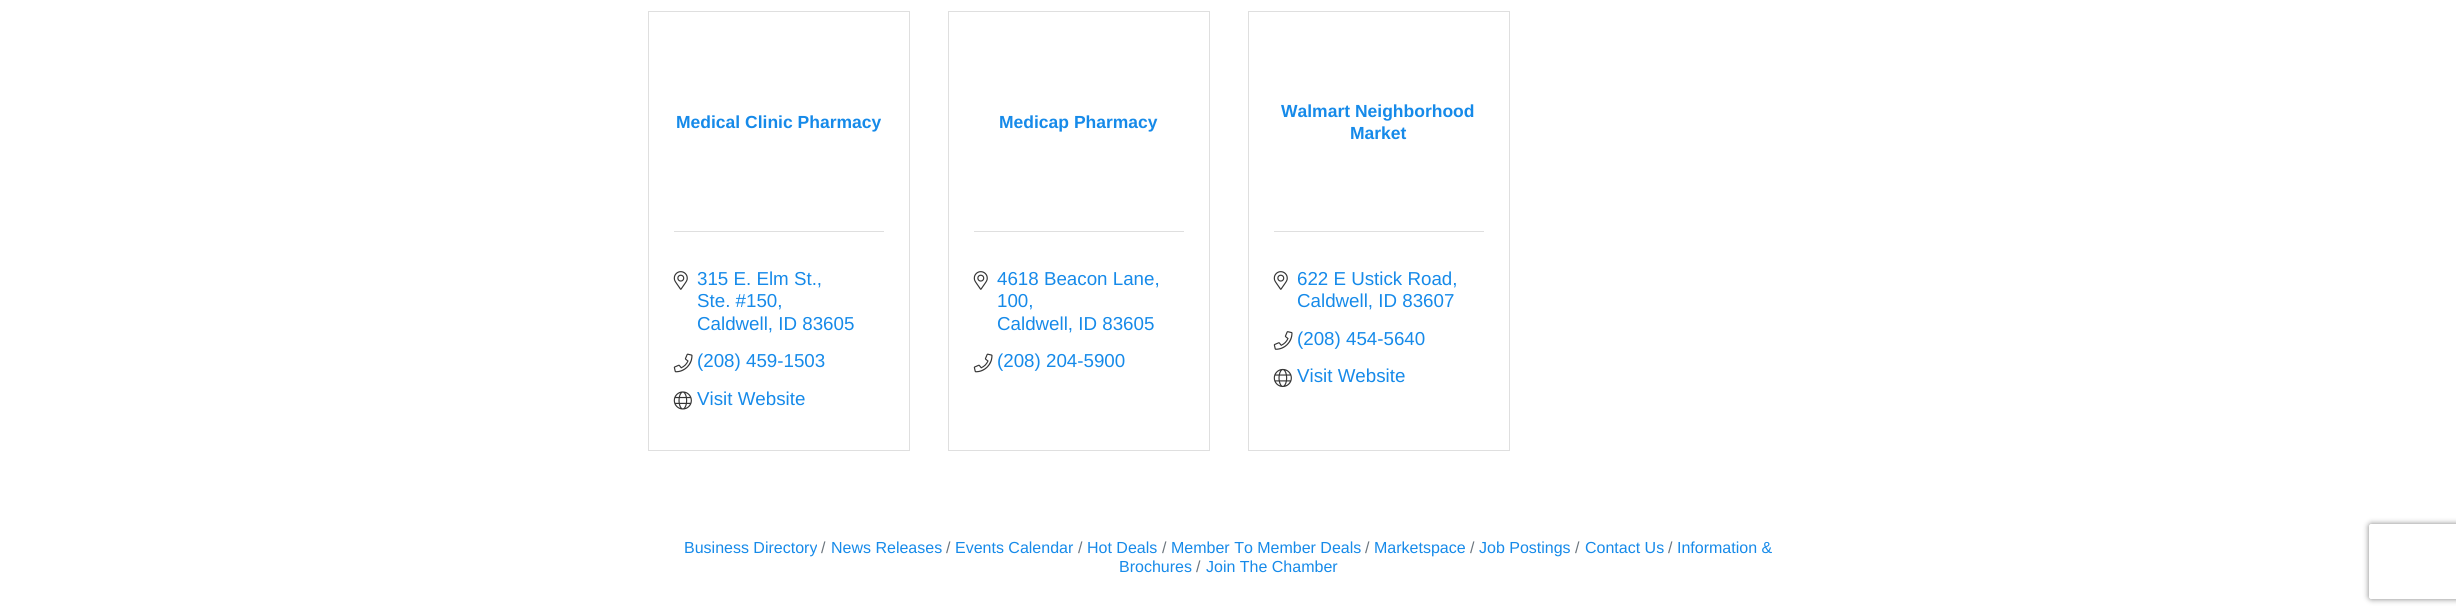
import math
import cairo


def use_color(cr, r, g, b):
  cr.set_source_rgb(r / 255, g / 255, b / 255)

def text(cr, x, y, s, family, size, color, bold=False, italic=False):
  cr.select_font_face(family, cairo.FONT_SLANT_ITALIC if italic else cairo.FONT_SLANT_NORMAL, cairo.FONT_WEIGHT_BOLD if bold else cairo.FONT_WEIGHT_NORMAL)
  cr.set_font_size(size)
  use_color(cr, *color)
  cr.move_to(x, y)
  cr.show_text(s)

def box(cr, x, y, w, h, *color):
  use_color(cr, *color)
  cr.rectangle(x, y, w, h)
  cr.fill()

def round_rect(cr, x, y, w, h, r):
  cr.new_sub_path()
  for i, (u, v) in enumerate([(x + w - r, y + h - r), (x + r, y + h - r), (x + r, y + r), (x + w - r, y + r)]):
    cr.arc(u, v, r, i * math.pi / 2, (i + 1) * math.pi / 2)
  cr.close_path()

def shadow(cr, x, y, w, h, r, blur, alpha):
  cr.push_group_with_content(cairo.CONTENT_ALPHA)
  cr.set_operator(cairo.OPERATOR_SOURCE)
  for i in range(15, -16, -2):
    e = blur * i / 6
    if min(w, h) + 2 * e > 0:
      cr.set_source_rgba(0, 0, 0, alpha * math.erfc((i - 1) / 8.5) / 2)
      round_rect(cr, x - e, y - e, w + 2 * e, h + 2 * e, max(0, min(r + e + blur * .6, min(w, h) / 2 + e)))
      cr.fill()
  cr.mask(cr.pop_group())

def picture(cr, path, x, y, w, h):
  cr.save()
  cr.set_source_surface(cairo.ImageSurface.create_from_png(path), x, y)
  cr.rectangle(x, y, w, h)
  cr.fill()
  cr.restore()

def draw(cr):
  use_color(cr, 255, 255, 255)
  cr.paint()
  cr.rectangle(648.5, 11.5, 261, 439)
  use_color(cr, 223, 223, 223)
  cr.set_line_width(1)
  cr.stroke()
  box(cr, 674, 231, 210, 1, 223, 223, 223)
  picture(cr, "img_01.png", 673, 271, 15, 19)
  picture(cr, "img_02.png", 673, 353, 20, 20)
  picture(cr, "img_03.png", 673, 391, 19, 19)
  cr.rectangle(948.5, 11.5, 261, 439)
  cr.stroke()
  box(cr, 974, 231, 210, 1, 223, 223, 223)
  picture(cr, "img_01.png", 973, 271, 15, 19)
  picture(cr, "img_02.png", 973, 353, 20, 20)
  cr.rectangle(1248.5, 11.5, 261, 439)
  cr.stroke()
  box(cr, 1274, 231, 210, 1, 223, 223, 223)
  picture(cr, "img_01.png", 1273, 271, 15, 19)
  picture(cr, "img_04.png", 1273, 331, 20, 19)
  picture(cr, "img_05.png", 1273, 368, 19, 20)
  cr.save()
  cr.set_fill_rule(cairo.FILL_RULE_EVEN_ODD)
  cr.new_path()
  cr.move_to(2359, 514)
  cr.line_to(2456, 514)
  cr.line_to(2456, 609)
  cr.line_to(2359, 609)
  cr.close_path()
  cr.move_to(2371.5, 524)
  cr.line_to(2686.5, 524)
  cr.curve_to(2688, 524, 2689, 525, 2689, 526.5)
  cr.line_to(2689, 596.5)
  cr.curve_to(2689, 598, 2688, 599, 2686.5, 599)
  cr.line_to(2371.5, 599)
  cr.curve_to(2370, 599, 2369, 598, 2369, 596.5)
  cr.line_to(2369, 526.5)
  cr.curve_to(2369, 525, 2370, 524, 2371.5, 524)
  cr.close_path()
  cr.clip()
  use_color(cr, 128, 128, 128)
  shadow(cr, 2369, 524, 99, 75, 2.5, 3, 1)
  cr.restore()
  text(cr, 676, 128, "Medical Clinic Pharmacy", "Liberation Sans", 17.5, (22, 138, 233), bold=True)
  text(cr, 697, 285, "315 E. Elm St.,", "Liberation Sans", 18.75, (22, 138, 233))
  text(cr, 697, 307, "Ste. #150,", "Liberation Sans", 18.75, (22, 138, 233))
  text(cr, 697, 330, "Caldwell, ID 83605", "Liberation Sans", 18.75, (22, 138, 233))
  text(cr, 697, 367, "(208) 459-1503", "Liberation Sans", 18.75, (22, 138, 233))
  text(cr, 697, 405, "Visit Website", "Liberation Sans", 18.75, (22, 138, 233))
  text(cr, 999, 128, "Medicap Pharmacy", "Liberation Sans", 17.5, (22, 138, 233), bold=True)
  text(cr, 997, 285, "4618 Beacon Lane,", "Liberation Sans", 18.75, (22, 138, 233))
  text(cr, 997, 307, "100,", "Liberation Sans", 18.75, (22, 138, 233))
  text(cr, 997, 330, "Caldwell, ID 83605", "Liberation Sans", 18.75, (22, 138, 233))
  text(cr, 997, 367, "(208) 204-5900", "Liberation Sans", 18.75, (22, 138, 233))
  text(cr, 1281, 117, "Walmart Neighborhood", "Liberation Sans", 17.5, (22, 138, 233), bold=True)
  text(cr, 1350, 139, "Market", "Liberation Sans", 17.5, (22, 138, 233), bold=True)
  text(cr, 1297, 285, "622 E Ustick Road,", "Liberation Sans", 18.75, (22, 138, 233))
  text(cr, 1297, 307, "Caldwell, ID 83607", "Liberation Sans", 18.75, (22, 138, 233))
  text(cr, 1297, 345, "(208) 454-5640", "Liberation Sans", 18.75, (22, 138, 233))
  text(cr, 1297, 382, "Visit Website", "Liberation Sans", 18.75, (22, 138, 233))
  text(cr, 684, 553, "Business Directory", "Liberation Sans", 16, (22, 138, 233))
  text(cr, 821, 553, "/", "Liberation Sans", 16, (108, 117, 125))
  text(cr, 831, 553, "News Releases", "Liberation Sans", 16, (22, 138, 233))
  text(cr, 946, 553, "/", "Liberation Sans", 16, (108, 117, 125))
  text(cr, 955, 553, "Events Calendar", "Liberation Sans", 16, (22, 138, 233))
  text(cr, 1078, 553, "/", "Liberation Sans", 16, (108, 117, 125))
  text(cr, 1087, 553, "Hot Deals", "Liberation Sans", 16, (22, 138, 233))
  text(cr, 1668, 553, "/", "Liberation Sans", 16, (108, 117, 125))
  text(cr, 1677, 553, "Information &", "Liberation Sans", 16, (22, 138, 233))
  text(cr, 1119, 572, "Brochures", "Liberation Sans", 16, (22, 138, 233))
  text(cr, 1162, 553, "/", "Liberation Sans", 16, (108, 117, 125))
  text(cr, 1171, 553, "Member To Member Deals", "Liberation Sans", 16, (22, 138, 233))
  text(cr, 1365, 553, "/", "Liberation Sans", 16, (108, 117, 125))
  text(cr, 1374, 553, "Marketspace", "Liberation Sans", 16, (22, 138, 233))
  text(cr, 1470, 553, "/", "Liberation Sans", 16, (108, 117, 125))
  text(cr, 1479, 553, "Job Postings", "Liberation Sans", 16, (22, 138, 233))
  text(cr, 1575, 553, "/", "Liberation Sans", 16, (108, 117, 125))
  text(cr, 1585, 553, "Contact Us", "Liberation Sans", 16, (22, 138, 233))
  text(cr, 1196, 572, "/", "Liberation Sans", 16, (108, 117, 125))
  text(cr, 1206, 572, "Join The Chamber", "Liberation Sans", 16, (22, 138, 233))


surface = cairo.ImageSurface(cairo.FORMAT_RGB24, 2456, 616)
cr = cairo.Context(surface)
options = cairo.FontOptions()
options.set_hint_metrics(cairo.HINT_METRICS_OFF)
options.set_hint_style(cairo.HINT_STYLE_NONE)
cr.set_font_options(options)
cr.set_miter_limit(4)
draw(cr)
surface.write_to_png("out.png")
